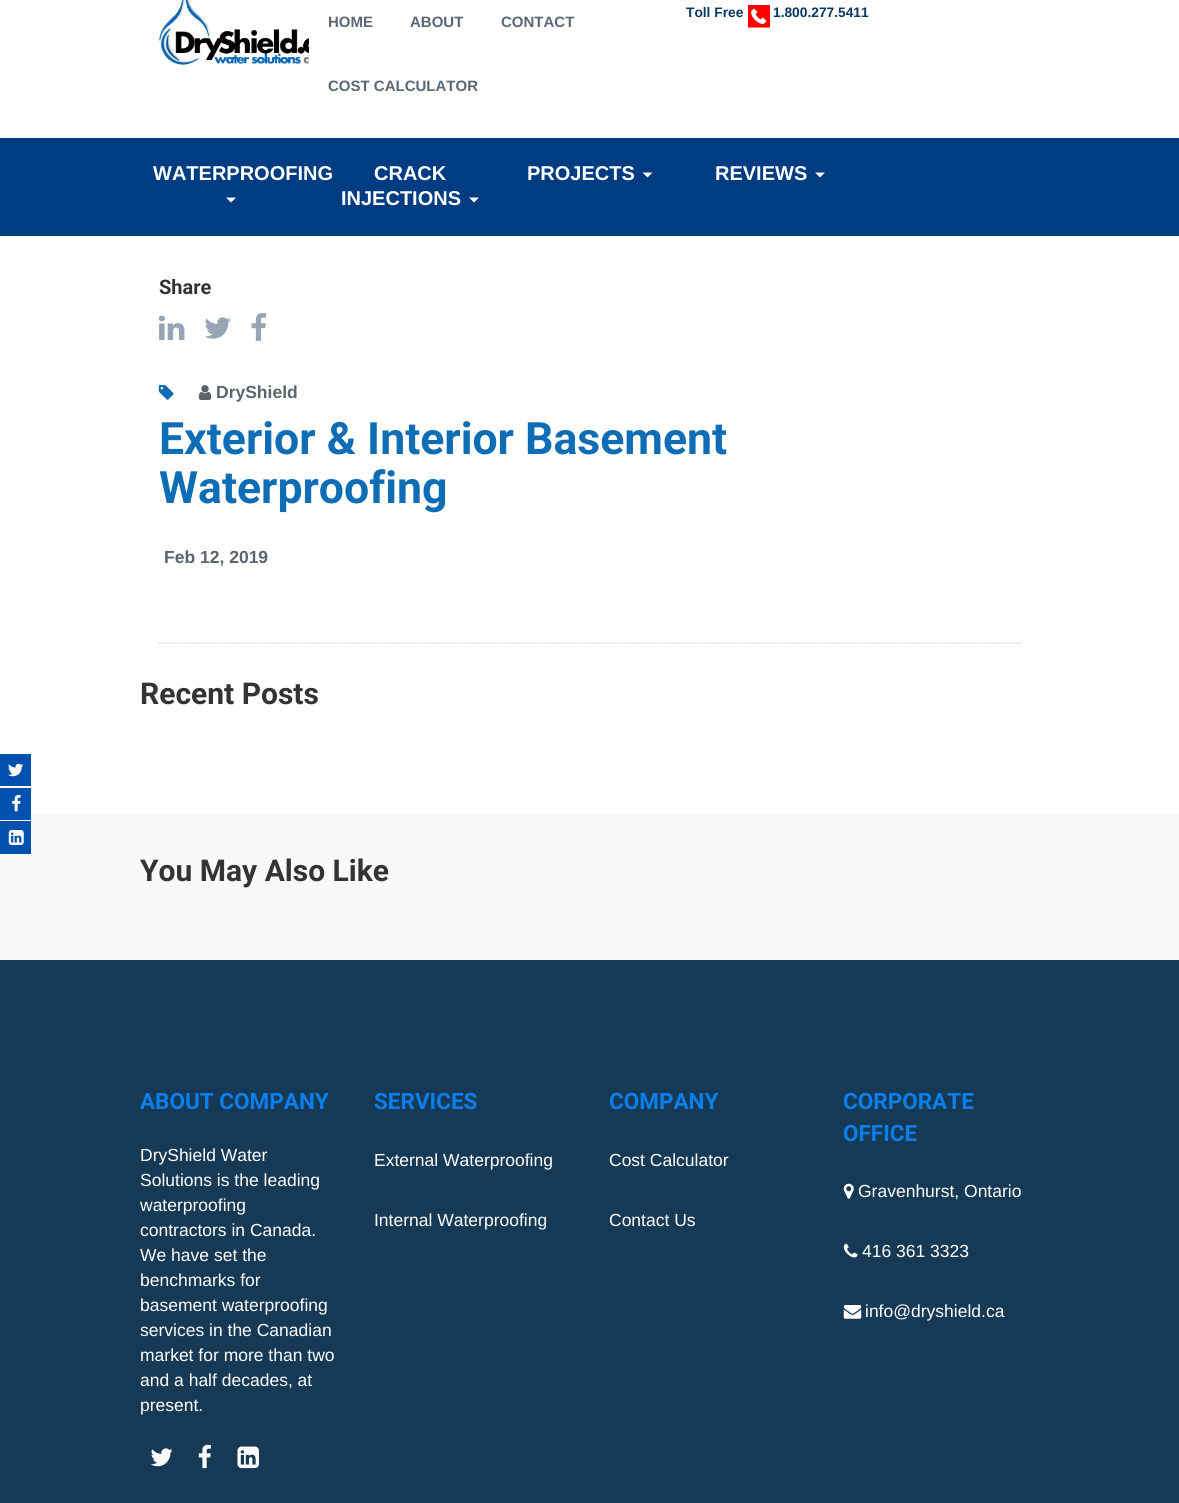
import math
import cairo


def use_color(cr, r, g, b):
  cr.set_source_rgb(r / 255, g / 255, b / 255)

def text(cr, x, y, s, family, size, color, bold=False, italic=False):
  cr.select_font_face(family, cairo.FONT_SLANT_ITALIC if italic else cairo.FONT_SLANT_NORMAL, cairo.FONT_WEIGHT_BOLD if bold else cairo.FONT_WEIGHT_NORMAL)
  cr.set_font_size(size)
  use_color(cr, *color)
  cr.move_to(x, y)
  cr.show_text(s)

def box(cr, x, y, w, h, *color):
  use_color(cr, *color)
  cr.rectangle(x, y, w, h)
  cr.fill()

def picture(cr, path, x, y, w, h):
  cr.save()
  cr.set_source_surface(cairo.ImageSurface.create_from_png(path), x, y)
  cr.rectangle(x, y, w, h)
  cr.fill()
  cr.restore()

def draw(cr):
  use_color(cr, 255, 255, 255)
  cr.paint()
  picture(cr, "img_01.png", 159, 0, 150, 65)
  picture(cr, "img_02.png", 748, 5, 22, 23)
  box(cr, 0, 138, 1179, 98, 0, 60, 130)
  use_color(cr, 255, 255, 255)
  cr.new_path()
  cr.move_to(226, 197.5)
  cr.line_to(236, 197.5)
  cr.line_to(231, 202.5)
  cr.close_path()
  cr.fill()
  cr.new_path()
  cr.move_to(469, 197.5)
  cr.line_to(479, 197.5)
  cr.line_to(474, 202.5)
  cr.close_path()
  cr.fill()
  cr.new_path()
  cr.move_to(642.5, 172.5)
  cr.line_to(652.5, 172.5)
  cr.line_to(647.5, 177.5)
  cr.close_path()
  cr.fill()
  cr.new_path()
  cr.move_to(815, 172.5)
  cr.line_to(825, 172.5)
  cr.line_to(820, 177.5)
  cr.close_path()
  cr.fill()
  picture(cr, "img_03.png", 158, 315, 27, 26)
  picture(cr, "img_04.png", 204, 317, 27, 22)
  picture(cr, "img_05.png", 251, 313, 16, 28)
  picture(cr, "img_06.png", 158, 385, 16, 15)
  picture(cr, "img_07.png", 198, 385, 14, 15)
  cr.new_path()
  cr.move_to(159, 643)
  cr.line_to(1021, 643)
  use_color(cr, 204, 204, 204)
  cr.set_line_width(1.2)
  cr.set_dash([1.25, 1.25])
  cr.stroke()
  box(cr, 0, 754, 31, 32, 0, 81, 175)
  picture(cr, "img_08.png", 8, 763, 16, 14)
  box(cr, 0, 814, 1179, 146, 248, 249, 250)
  box(cr, 0, 788, 31, 32, 0, 81, 175)
  picture(cr, "img_09.png", 12, 795, 9, 17)
  box(cr, 0, 821, 31, 33, 0, 81, 175)
  picture(cr, "img_10.png", 8, 830, 16, 15)
  box(cr, 0, 960, 1179, 543, 22, 58, 85)
  picture(cr, "img_11.png", 150, 1448, 23, 19)
  picture(cr, "img_12.png", 198, 1444, 13, 25)
  picture(cr, "img_13.png", 237, 1446, 22, 23)
  picture(cr, "img_14.png", 843, 1183, 11, 16)
  picture(cr, "img_15.png", 843, 1243, 15, 15)
  picture(cr, "img_16.png", 843, 1305, 19, 14)
  text(cr, 686, 17, "Toll Free", "Liberation Sans", 13.75, (10, 55, 98), bold=True)
  text(cr, 773, 17, "1.800.277.5411", "Liberation Sans", 13.75, (10, 55, 98), bold=True)
  text(cr, 328, 27, "HOME", "Liberation Sans", 15, (91, 103, 117), bold=True)
  text(cr, 410, 27, "ABOUT", "Liberation Sans", 15, (91, 103, 117), bold=True)
  text(cr, 501, 27, "CONTACT", "Liberation Sans", 15, (91, 103, 117), bold=True)
  text(cr, 328, 91, "COST CALCULATOR", "Liberation Sans", 15, (91, 103, 117), bold=True)
  text(cr, 153, 180, "WATERPROOFING", "Liberation Sans", 20, (255, 255, 255), bold=True)
  text(cr, 374, 180, "CRACK", "Liberation Sans", 20, (255, 255, 255), bold=True)
  text(cr, 341, 205, "INJECTIONS", "Liberation Sans", 20, (255, 255, 255), bold=True)
  text(cr, 527, 180, "PROJECTS", "Liberation Sans", 20, (255, 255, 255), bold=True)
  text(cr, 715, 180, "REVIEWS", "Liberation Sans", 20, (255, 255, 255), bold=True)
  text(cr, 159, 294, "Share", "Roboto", 20, (51, 51, 51), bold=True)
  text(cr, 216, 398, "DryShield", "Liberation Sans", 17.5, (92, 101, 109), bold=True)
  text(cr, 159, 454, "Exterior & Interior Basement", "Roboto", 44.6, (15, 109, 181), bold=True)
  text(cr, 159, 503, "Waterproofing", "Roboto", 44.6, (15, 109, 181), bold=True)
  text(cr, 164, 563, "Feb 12, 2019", "Liberation Sans", 17.5, (92, 101, 109), bold=True)
  text(cr, 140, 704, "Recent Posts", "Roboto", 30, (51, 51, 51), bold=True)
  text(cr, 140, 881, "You May Also Like", "Roboto", 30, (51, 51, 51), bold=True)
  text(cr, 140, 1109, "ABOUT COMPANY", "Roboto", 22.5, (10, 127, 236), bold=True)
  text(cr, 140, 1161, "DryShield Water", "Liberation Sans", 17.5, (255, 255, 255))
  text(cr, 140, 1186, "Solutions is the leading", "Liberation Sans", 17.5, (255, 255, 255))
  text(cr, 140, 1211, "waterproofing", "Liberation Sans", 17.5, (255, 255, 255))
  text(cr, 140, 1236, "contractors in Canada.", "Liberation Sans", 17.5, (255, 255, 255))
  text(cr, 140, 1261, "We have set the", "Liberation Sans", 17.5, (255, 255, 255))
  text(cr, 140, 1286, "benchmarks for", "Liberation Sans", 17.5, (255, 255, 255))
  text(cr, 140, 1311, "basement waterproofing", "Liberation Sans", 17.5, (255, 255, 255))
  text(cr, 140, 1336, "services in the Canadian", "Liberation Sans", 17.5, (255, 255, 255))
  text(cr, 140, 1361, "market for more than two", "Liberation Sans", 17.5, (255, 255, 255))
  text(cr, 140, 1386, "and a half decades, at", "Liberation Sans", 17.5, (255, 255, 255))
  text(cr, 140, 1411, "present.", "Liberation Sans", 17.5, (255, 255, 255))
  text(cr, 374, 1109, "SERVICES", "Roboto", 22.5, (10, 127, 236), bold=True)
  text(cr, 374, 1166, "External Waterproofing", "Liberation Sans", 17.5, (255, 255, 255))
  text(cr, 374, 1226, "Internal Waterproofing", "Liberation Sans", 17.5, (255, 255, 255))
  text(cr, 609, 1109, "COMPANY", "Roboto", 22.5, (10, 127, 236), bold=True)
  text(cr, 609, 1166, "Cost Calculator", "Liberation Sans", 17.5, (255, 255, 255))
  text(cr, 609, 1226, "Contact Us", "Liberation Sans", 17.5, (255, 255, 255))
  text(cr, 843, 1109, "CORPORATE", "Roboto", 22.5, (10, 127, 236), bold=True)
  text(cr, 843, 1141, "OFFICE", "Roboto", 22.5, (10, 127, 236), bold=True)
  text(cr, 858, 1197, "Gravenhurst, Ontario", "Liberation Sans", 17.5, (255, 255, 255))
  text(cr, 862, 1257, "416 361 3323", "Liberation Sans", 17.5, (255, 255, 255))
  text(cr, 865, 1317, "info@dryshield.ca", "Liberation Sans", 17.5, (255, 255, 255))


surface = cairo.ImageSurface(cairo.FORMAT_RGB24, 1179, 1503)
cr = cairo.Context(surface)
options = cairo.FontOptions()
options.set_hint_metrics(cairo.HINT_METRICS_OFF)
options.set_hint_style(cairo.HINT_STYLE_NONE)
cr.set_font_options(options)
cr.set_miter_limit(4)
draw(cr)
surface.write_to_png("out.png")
